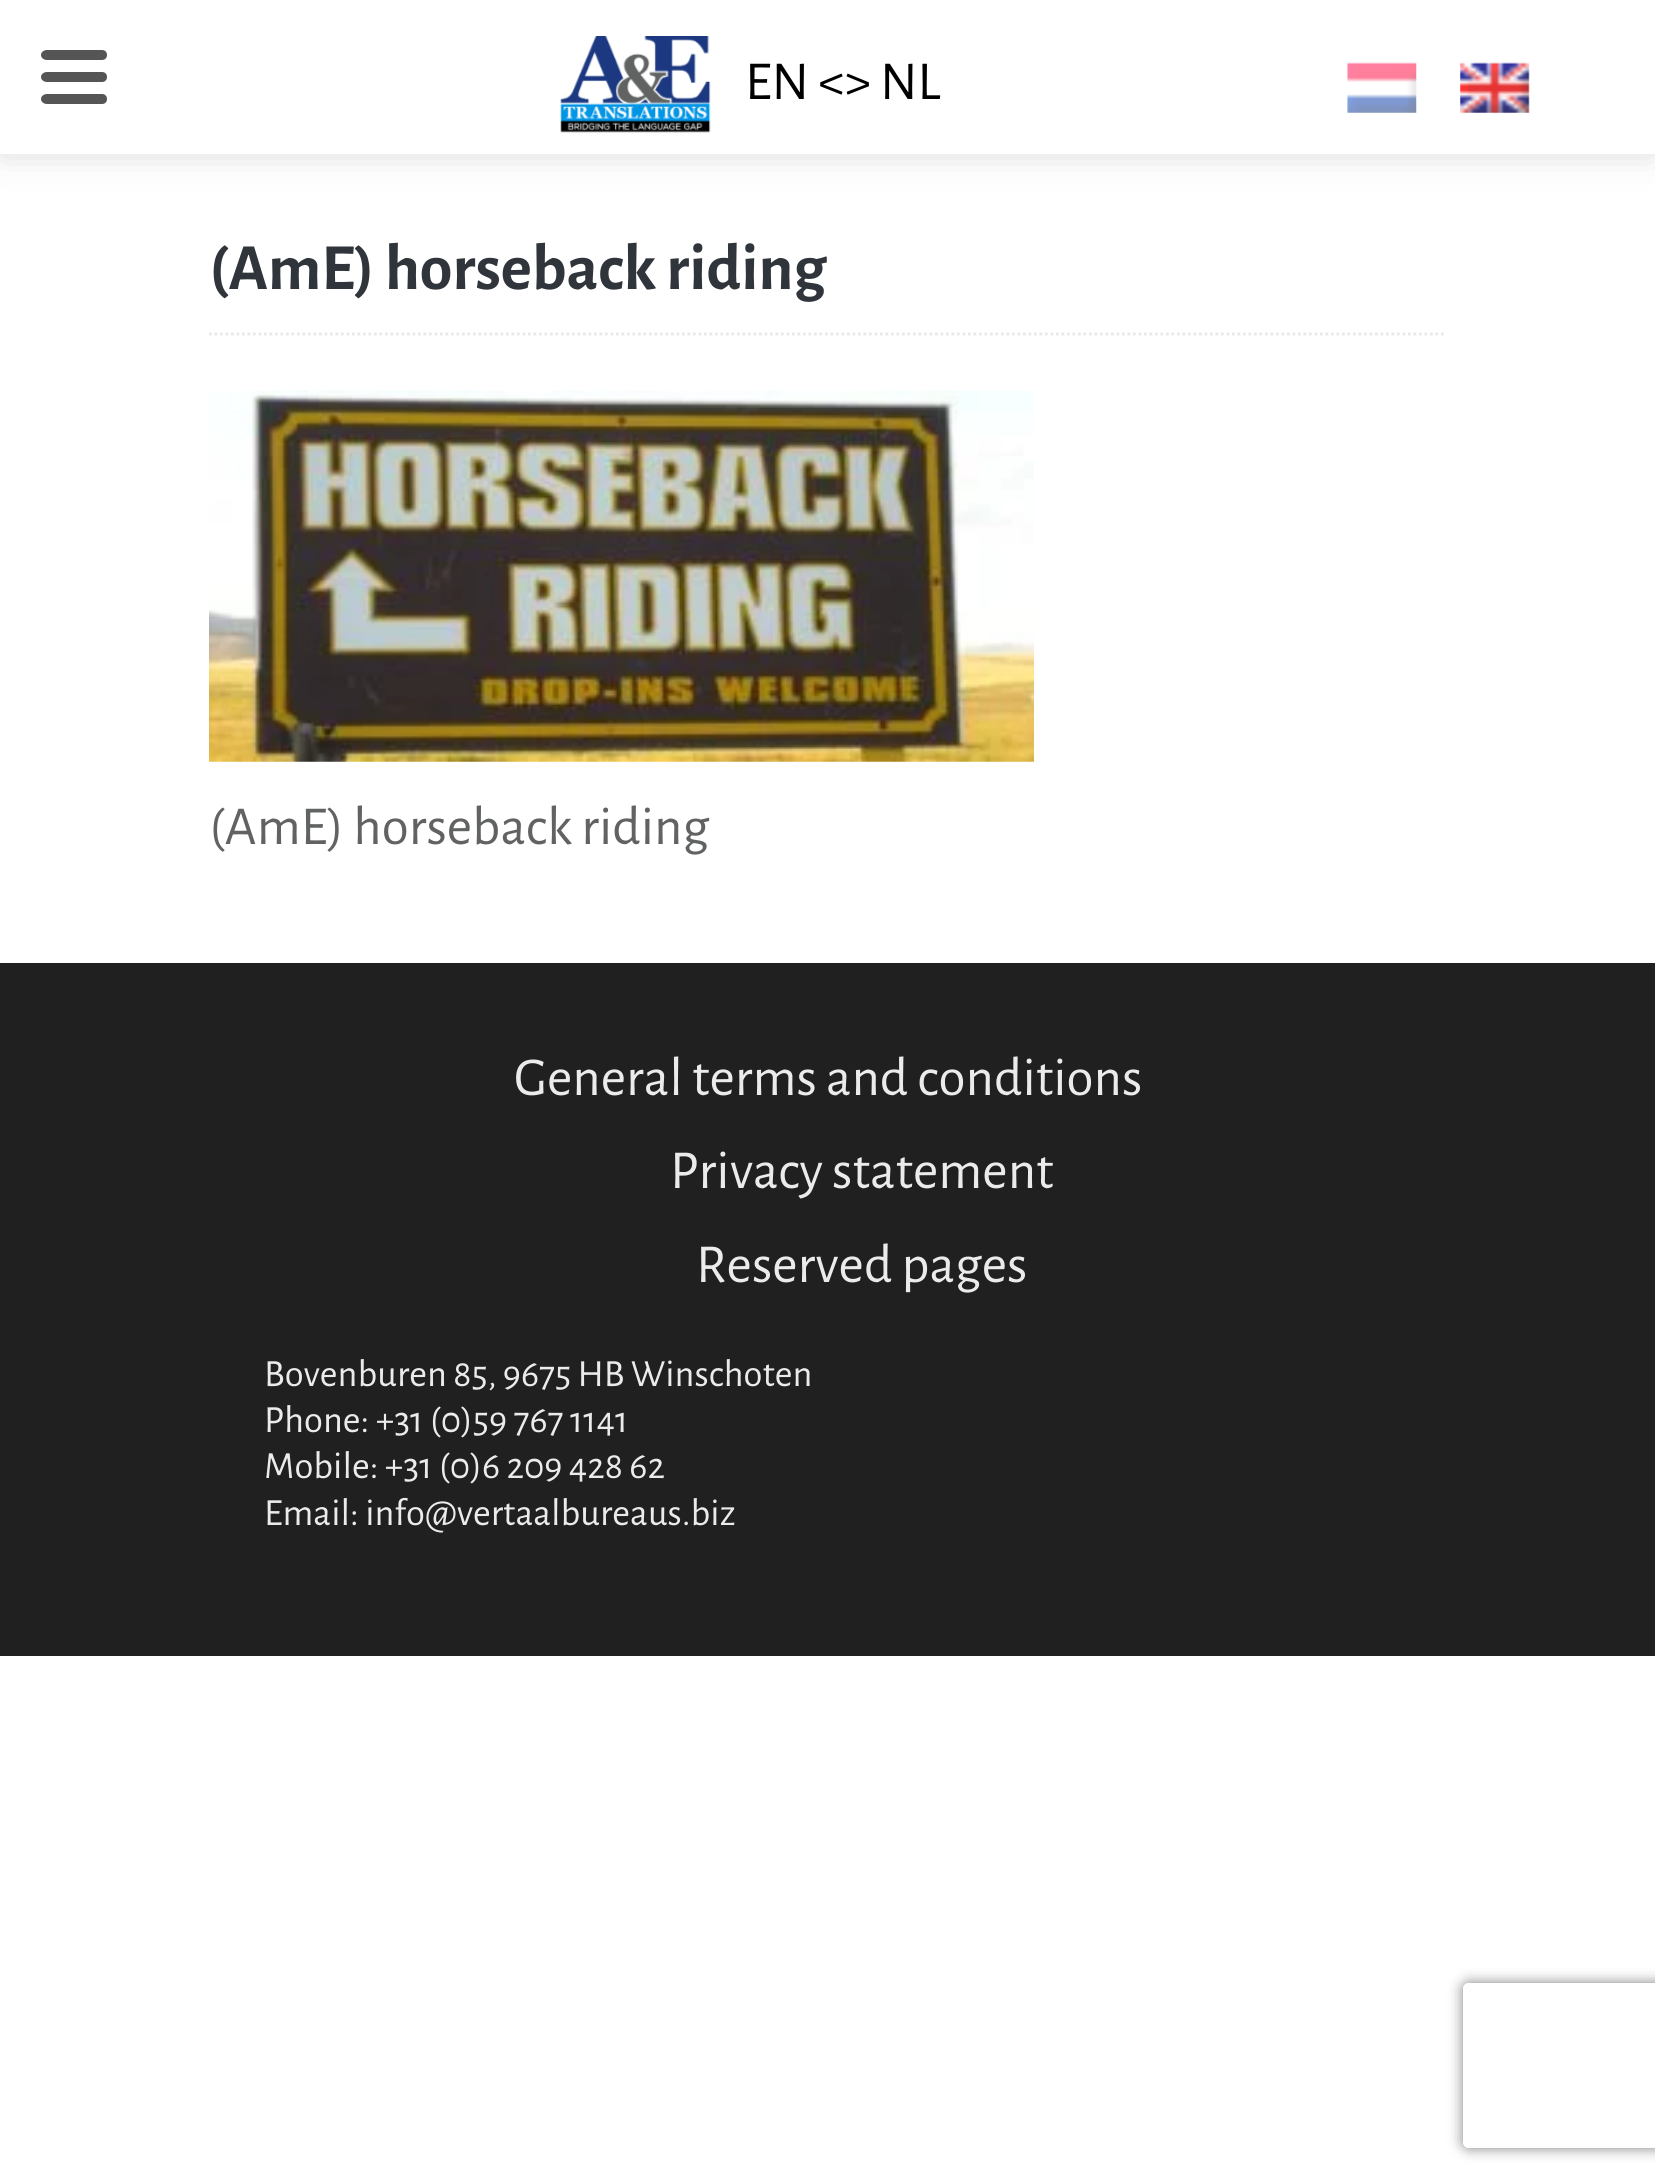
import math
import cairo


def use_color(cr, r, g, b):
  cr.set_source_rgb(r / 255, g / 255, b / 255)

def text(cr, x, y, s, family, size, color, bold=False, italic=False):
  cr.select_font_face(family, cairo.FONT_SLANT_ITALIC if italic else cairo.FONT_SLANT_NORMAL, cairo.FONT_WEIGHT_BOLD if bold else cairo.FONT_WEIGHT_NORMAL)
  cr.set_font_size(size)
  use_color(cr, *color)
  cr.move_to(x, y)
  cr.show_text(s)

def box(cr, x, y, w, h, *color):
  use_color(cr, *color)
  cr.rectangle(x, y, w, h)
  cr.fill()

def round_rect(cr, x, y, w, h, r):
  cr.new_sub_path()
  for i, (u, v) in enumerate([(x + w - r, y + h - r), (x + r, y + h - r), (x + r, y + r), (x + w - r, y + r)]):
    cr.arc(u, v, r, i * math.pi / 2, (i + 1) * math.pi / 2)
  cr.close_path()

def shadow(cr, x, y, w, h, r, blur, alpha):
  cr.push_group_with_content(cairo.CONTENT_ALPHA)
  cr.set_operator(cairo.OPERATOR_SOURCE)
  for i in range(15, -16, -2):
    e = blur * i / 6
    if min(w, h) + 2 * e > 0:
      cr.set_source_rgba(0, 0, 0, alpha * math.erfc((i - 1) / 8.5) / 2)
      round_rect(cr, x - e, y - e, w + 2 * e, h + 2 * e, max(0, min(r + e + blur * .6, min(w, h) / 2 + e)))
      cr.fill()
  cr.mask(cr.pop_group())

def picture(cr, path, x, y, w, h):
  cr.save()
  cr.set_source_surface(cairo.ImageSurface.create_from_png(path), x, y)
  cr.rectangle(x, y, w, h)
  cr.fill()
  cr.restore()

def draw(cr):
  use_color(cr, 255, 255, 255)
  cr.paint()
  use_color(cr, 0, 0, 0)
  shadow(cr, 3, 3, 1650, 148, 0, 18, 0.17)
  box(cr, 0, 0, 1655, 154, 255, 255, 255)
  use_color(cr, 85, 85, 85)
  cr.new_path()
  cr.move_to(102, 82)
  cr.line_to(47, 82)
  cr.curve_to(44, 82, 41, 80, 41, 77)
  cr.curve_to(41, 74, 44, 72, 47, 72)
  cr.line_to(102, 72)
  cr.curve_to(105, 72, 107, 74, 107, 77)
  cr.curve_to(107, 80, 105, 82, 102, 82)
  cr.close_path()
  cr.fill()
  cr.new_path()
  cr.move_to(102, 60)
  cr.line_to(47, 60)
  cr.curve_to(44, 60, 41, 58, 41, 55)
  cr.curve_to(41, 52, 44, 50, 47, 50)
  cr.line_to(102, 50)
  cr.curve_to(105, 50, 107, 52, 107, 55)
  cr.curve_to(107, 58, 105, 60, 102, 60)
  cr.close_path()
  cr.fill()
  cr.new_path()
  cr.move_to(102, 104)
  cr.line_to(47, 104)
  cr.curve_to(44, 104, 41, 102, 41, 99)
  cr.curve_to(41, 96, 44, 94, 47, 94)
  cr.line_to(102, 94)
  cr.curve_to(105, 94, 107, 96, 107, 99)
  cr.curve_to(107, 102, 105, 104, 102, 104)
  cr.close_path()
  cr.fill()
  picture(cr, "img_01.png", 560, 36, 151, 97)
  picture(cr, "img_02.png", 1347, 62, 70, 51)
  picture(cr, "img_03.png", 1460, 62, 70, 51)
  cr.new_path()
  cr.move_to(209, 334)
  cr.line_to(1446.5, 334)
  use_color(cr, 232, 232, 232)
  cr.set_line_width(2.8)
  cr.set_dash([2.75, 2.75])
  cr.stroke()
  picture(cr, "img_04.png", 209, 390, 825, 372)
  box(cr, 0, 963, 1655, 693, 32, 32, 32)
  cr.save()
  cr.set_fill_rule(cairo.FILL_RULE_EVEN_ODD)
  cr.new_path()
  cr.move_to(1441, 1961)
  cr.line_to(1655, 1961)
  cr.line_to(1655, 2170)
  cr.line_to(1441, 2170)
  cr.close_path()
  cr.move_to(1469, 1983)
  cr.line_to(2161, 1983)
  cr.curve_to(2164.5, 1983, 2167, 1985.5, 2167, 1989)
  cr.line_to(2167, 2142)
  cr.curve_to(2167, 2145.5, 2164.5, 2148, 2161, 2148)
  cr.line_to(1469, 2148)
  cr.curve_to(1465.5, 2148, 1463, 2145.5, 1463, 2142)
  cr.line_to(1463, 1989)
  cr.curve_to(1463, 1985.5, 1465.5, 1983, 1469, 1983)
  cr.close_path()
  cr.clip()
  use_color(cr, 128, 128, 128)
  shadow(cr, 1463, 1983, 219, 165, 6, 7, 1)
  cr.restore()
  text(cr, 745, 99, "EN <> NL", "Alegreya Sans", 55, (0, 0, 0))
  text(cr, 209, 289, "(AmE) horseback riding", "Alegreya Sans", 66, (47, 53, 59), bold=True)
  text(cr, 209, 844, "(AmE) horseback riding", "Alegreya Sans", 55, (97, 98, 98))
  text(cr, 514, 1095, "General terms and conditions", "Alegreya Sans", 55, (235, 235, 235))
  text(cr, 670, 1188, "Privacy statement", "Alegreya Sans", 55, (235, 235, 235))
  text(cr, 696, 1282, "Reserved pages", "Alegreya Sans", 55, (235, 235, 235))
  text(cr, 264, 1386, "Bovenburen 85, 9675 HB Winschoten", "Alegreya Sans", 38.5, (235, 235, 235))
  text(cr, 264, 1432, "Phone: +31 (0)59 767 1141", "Alegreya Sans", 38.5, (235, 235, 235))
  text(cr, 264, 1478, "Mobile: +31 (0)6 209 428 62", "Alegreya Sans", 38.5, (235, 235, 235))
  text(cr, 264, 1525, "Email: info@vertaalbureaus.biz", "Alegreya Sans", 38.5, (235, 235, 235))


surface = cairo.ImageSurface(cairo.FORMAT_RGB24, 1655, 2184)
cr = cairo.Context(surface)
options = cairo.FontOptions()
options.set_hint_metrics(cairo.HINT_METRICS_OFF)
options.set_hint_style(cairo.HINT_STYLE_NONE)
cr.set_font_options(options)
cr.set_miter_limit(4)
draw(cr)
surface.write_to_png("out.png")
